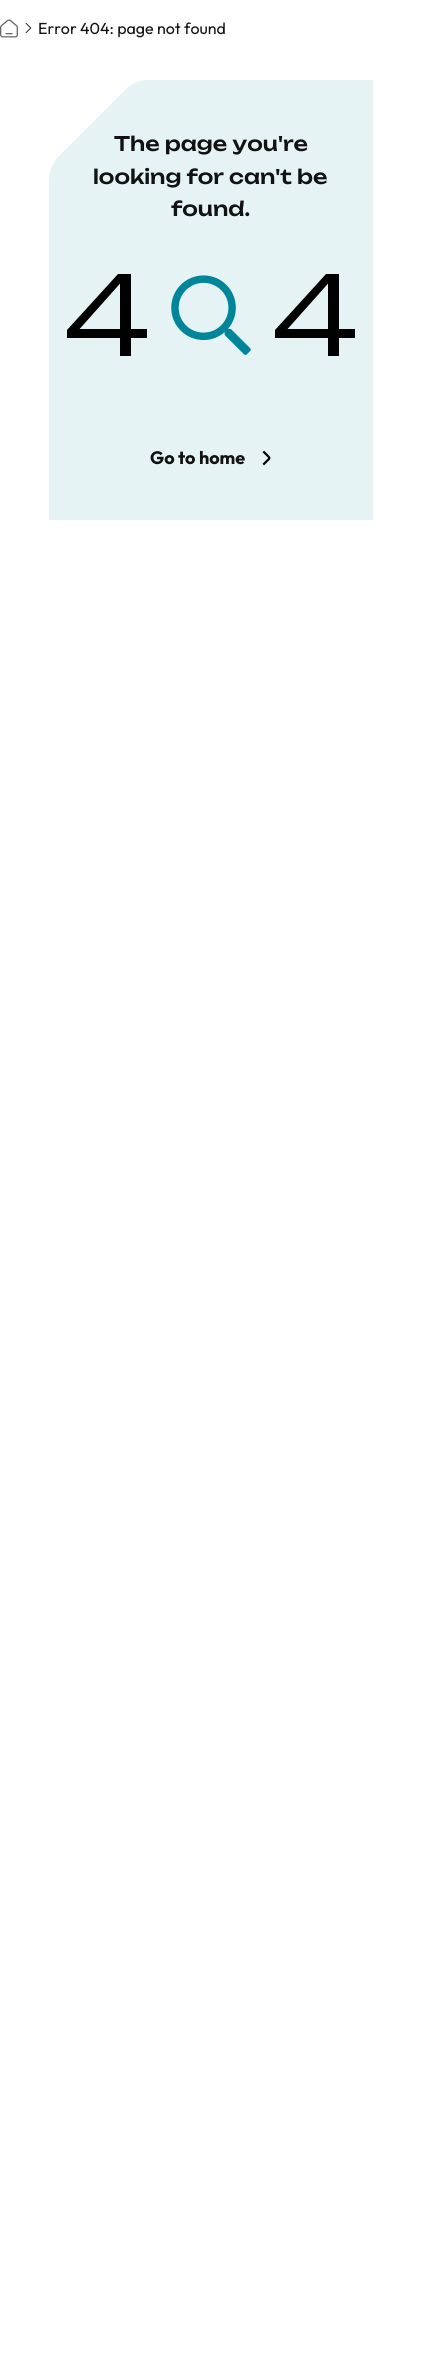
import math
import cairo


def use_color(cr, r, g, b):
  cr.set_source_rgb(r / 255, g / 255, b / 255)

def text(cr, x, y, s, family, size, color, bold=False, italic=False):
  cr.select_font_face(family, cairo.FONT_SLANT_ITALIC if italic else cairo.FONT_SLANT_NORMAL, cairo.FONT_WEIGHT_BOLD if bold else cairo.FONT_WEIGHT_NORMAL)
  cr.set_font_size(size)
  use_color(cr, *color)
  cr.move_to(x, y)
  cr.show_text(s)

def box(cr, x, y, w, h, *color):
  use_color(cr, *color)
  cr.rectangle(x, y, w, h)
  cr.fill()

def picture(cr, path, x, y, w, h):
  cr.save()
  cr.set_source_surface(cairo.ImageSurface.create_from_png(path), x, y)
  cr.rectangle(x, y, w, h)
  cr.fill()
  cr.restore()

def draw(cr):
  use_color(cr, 255, 255, 255)
  cr.paint()
  picture(cr, "img_01.png", 0, 19, 18, 19)
  picture(cr, "img_02.png", 25, 23, 7, 10)
  box(cr, 49, 80, 324, 440, 230, 243, 245)
  use_color(cr, 0, 0, 0)
  cr.new_path()
  cr.move_to(131, 274)
  cr.line_to(131, 356)
  cr.line_to(120, 356)
  cr.line_to(120, 278)
  cr.line_to(125, 278)
  cr.line_to(76, 333)
  cr.line_to(76, 329)
  cr.line_to(147, 329)
  cr.line_to(147, 338)
  cr.line_to(67, 338)
  cr.line_to(67, 330)
  cr.line_to(118, 274)
  cr.close_path()
  cr.fill()
  picture(cr, "img_03.png", 171, 275, 80, 80)
  cr.new_path()
  cr.move_to(339, 274)
  cr.line_to(339, 356)
  cr.line_to(328, 356)
  cr.line_to(328, 278)
  cr.line_to(333, 278)
  cr.line_to(284, 333)
  cr.line_to(284, 329)
  cr.line_to(355, 329)
  cr.line_to(355, 338)
  cr.line_to(275, 338)
  cr.line_to(275, 330)
  cr.line_to(326, 274)
  cr.close_path()
  cr.fill()
  picture(cr, "img_04.png", 262, 450, 9, 16)
  text(cr, 38, 34, "Error 404: page not found", "Outfit", 16, (18, 18, 18))
  text(cr, 114, 151, "The page you're", "Unbounded Medium", 20, (18, 18, 18))
  text(cr, 93, 184, "looking for can't be", "Unbounded Medium", 20, (18, 18, 18))
  use_color(cr, 255, 255, 255)
  cr.new_path()
  cr.move_to(124, 91)
  cr.curve_to(130, 84, 139, 80, 148, 80)
  cr.line_to(49, 80)
  cr.line_to(49, 181)
  cr.curve_to(49, 171, 53, 162, 60, 155)
  cr.close_path()
  cr.fill()
  text(cr, 171, 216, "found.", "Unbounded Medium", 20, (18, 18, 18))
  text(cr, 150, 464, "Go to home", "Outfit", 18, (18, 18, 18), bold=True)


surface = cairo.ImageSurface(cairo.FORMAT_RGB24, 421, 2367)
cr = cairo.Context(surface)
options = cairo.FontOptions()
options.set_hint_metrics(cairo.HINT_METRICS_OFF)
options.set_hint_style(cairo.HINT_STYLE_NONE)
cr.set_font_options(options)
cr.set_miter_limit(4)
draw(cr)
surface.write_to_png("out.png")
